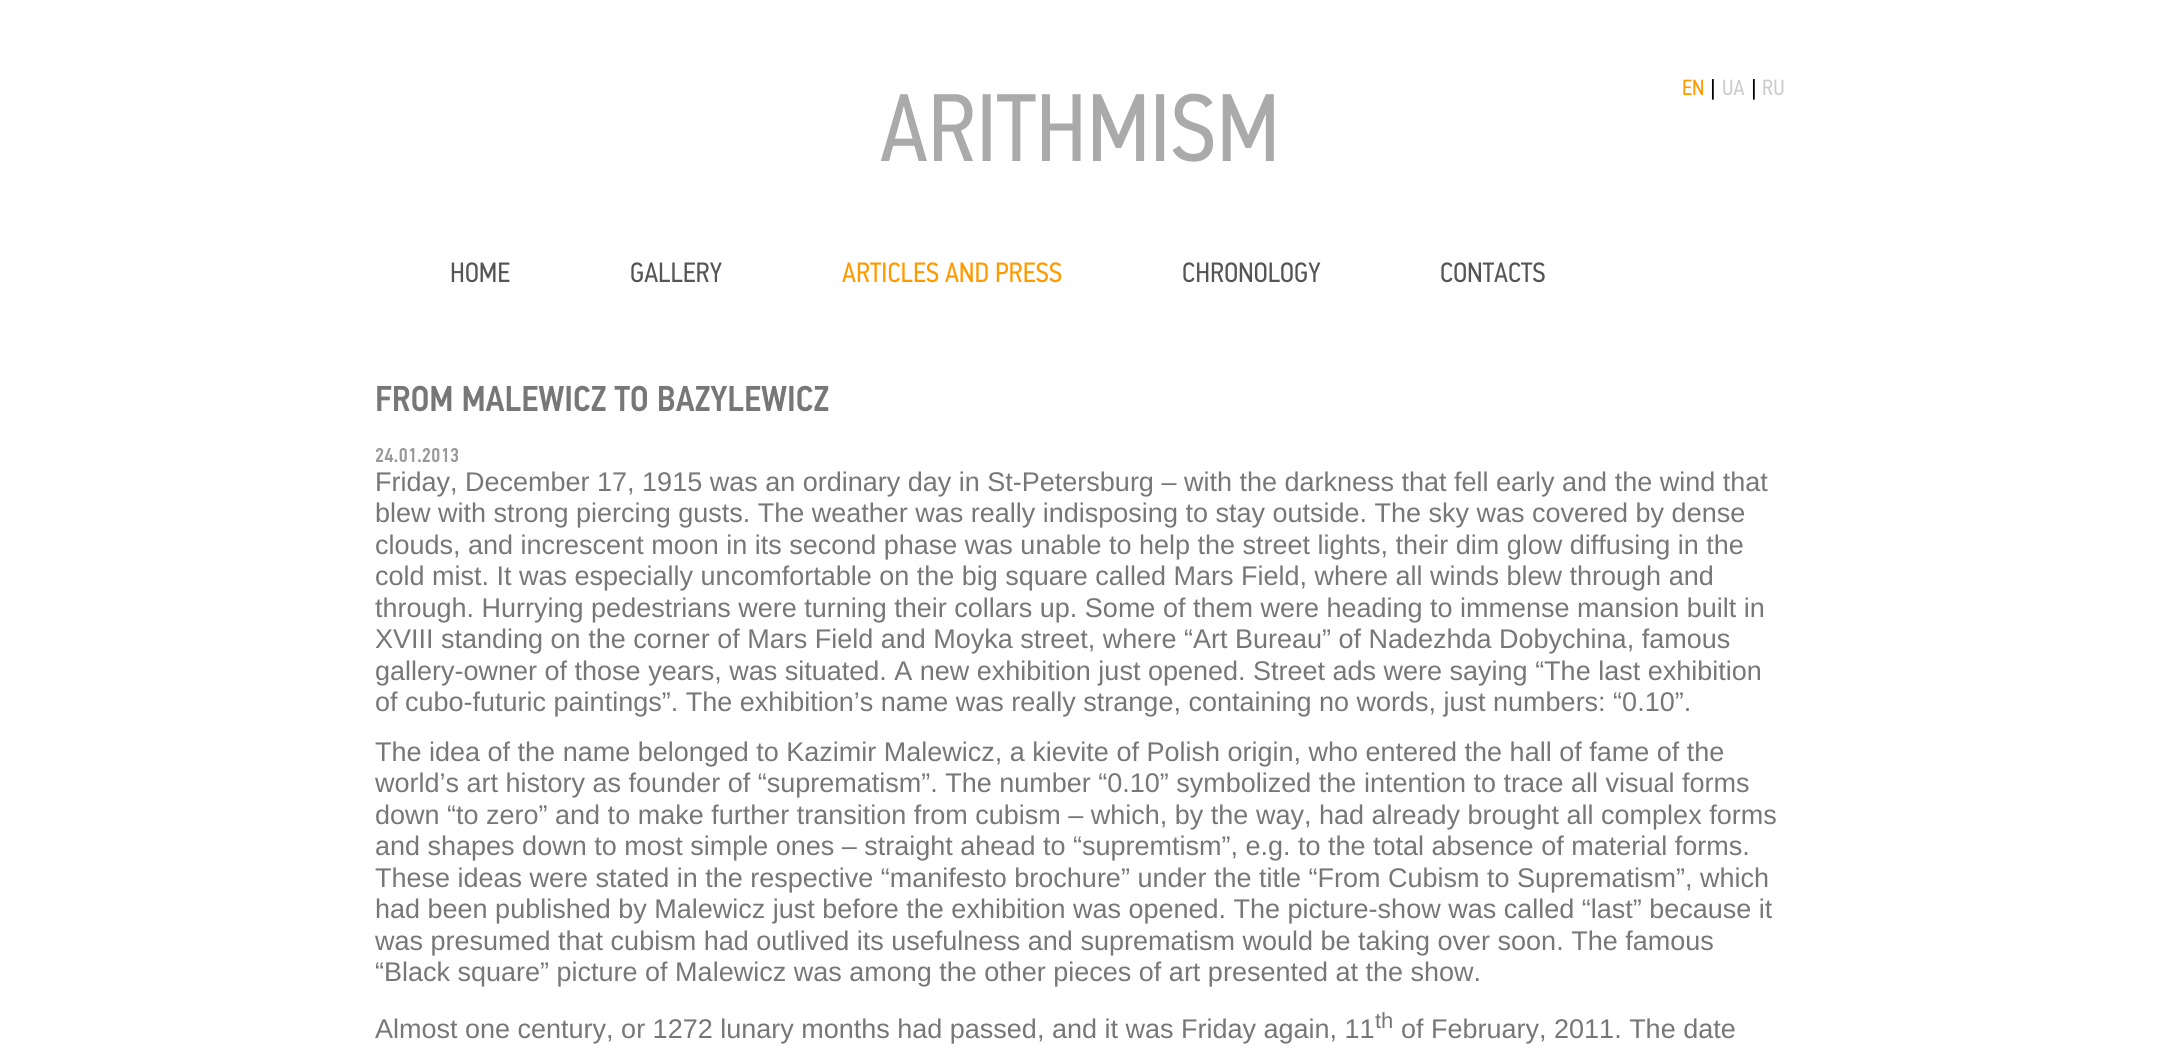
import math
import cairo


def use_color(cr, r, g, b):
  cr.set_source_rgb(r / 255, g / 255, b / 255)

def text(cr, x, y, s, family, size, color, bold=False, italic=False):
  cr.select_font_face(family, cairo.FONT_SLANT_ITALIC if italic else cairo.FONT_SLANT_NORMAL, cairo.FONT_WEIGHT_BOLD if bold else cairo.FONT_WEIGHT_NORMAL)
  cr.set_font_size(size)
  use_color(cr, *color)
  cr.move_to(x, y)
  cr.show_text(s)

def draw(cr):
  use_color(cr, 255, 255, 255)
  cr.paint()
  text(cr, 1682, 95, "EN", "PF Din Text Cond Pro", 22, (255, 153, 0))
  text(cr, 1710, 95, "|", "Liberation Sans", 22, (0, 0, 0))
  text(cr, 1722, 95, "UA", "PF Din Text Cond Pro", 22, (204, 204, 204))
  text(cr, 1751, 95, "|", "Liberation Sans", 22, (0, 0, 0))
  text(cr, 1762, 95, "RU", "PF Din Text Cond Pro", 22, (204, 204, 204))
  text(cr, 880, 161, "ARITHMISM", "PF Din Text Cond Pro", 96, (170, 170, 170))
  text(cr, 450, 282, "HOME", "PF Din Text Cond Pro", 28, (85, 85, 85))
  text(cr, 630, 282, "GALLERY", "PF Din Text Cond Pro", 28, (85, 85, 85))
  text(cr, 842, 282, "ARTICLES AND PRESS", "PF Din Text Cond Pro", 28, (255, 153, 0))
  text(cr, 1182, 282, "CHRONOLOGY", "PF Din Text Cond Pro", 28, (85, 85, 85))
  text(cr, 1440, 282, "CONTACTS", "PF Din Text Cond Pro", 28, (85, 85, 85))
  text(cr, 375, 411, "FROM MALEWICZ TO BAZYLEWICZ", "PF Din Text Cond Pro Medium", 36, (119, 119, 119))
  text(cr, 375, 462, "24.01.2013", "PF Din Text Cond Pro Medium", 20, (153, 153, 153))
  text(cr, 375, 491, "Friday, December 17, 1915 was an ordinary day in St-Petersburg – with the darkness that fell early and the wind that", "Liberation Sans", 27, (119, 119, 119))
  text(cr, 375, 522, "blew with strong piercing gusts. The weather was really indisposing to stay outside. The sky was covered by dense", "Liberation Sans", 27, (119, 119, 119))
  text(cr, 375, 554, "clouds, and increscent moon in its second phase was unable to help the street lights, their dim glow diffusing in the", "Liberation Sans", 27, (119, 119, 119))
  text(cr, 375, 585, "cold mist. It was especially uncomfortable on the big square called Mars Field, where all winds blew through and", "Liberation Sans", 27, (119, 119, 119))
  text(cr, 375, 617, "through. Hurrying pedestrians were turning their collars up. Some of them were heading to immense mansion built in", "Liberation Sans", 27, (119, 119, 119))
  text(cr, 375, 648, "XVIII standing on the corner of Mars Field and Moyka street, where “Art Bureau” of Nadezhda Dobychina, famous", "Liberation Sans", 27, (119, 119, 119))
  text(cr, 375, 680, "gallery-owner of those years, was situated. A new exhibition just opened. Street ads were saying “The last exhibition", "Liberation Sans", 27, (119, 119, 119))
  text(cr, 375, 711, "of cubo-futuric paintings”. The exhibition’s name was really strange, containing no words, just numbers: “0.10”.", "Liberation Sans", 27, (119, 119, 119))
  text(cr, 375, 761, "The idea of the name belonged to Kazimir Malewicz, a kievite of Polish origin, who entered the hall of fame of the", "Liberation Sans", 27, (119, 119, 119))
  text(cr, 375, 792, "world’s art history as founder of “suprematism”. The number “0.10” symbolized the intention to trace all visual forms", "Liberation Sans", 27, (119, 119, 119))
  text(cr, 375, 824, "down “to zero” and to make further transition from cubism – which, by the way, had already brought all complex forms", "Liberation Sans", 27, (119, 119, 119))
  text(cr, 375, 855, "and shapes down to most simple ones – straight ahead to “supremtism”, e.g. to the total absence of material forms.", "Liberation Sans", 27, (119, 119, 119))
  text(cr, 375, 887, "These ideas were stated in the respective “manifesto brochure” under the title “From Cubism to Suprematism”, which", "Liberation Sans", 27, (119, 119, 119))
  text(cr, 375, 918, "had been published by Malewicz just before the exhibition was opened. The picture-show was called “last” because it", "Liberation Sans", 27, (119, 119, 119))
  text(cr, 375, 950, "was presumed that cubism had outlived its usefulness and suprematism would be taking over soon. The famous", "Liberation Sans", 27, (119, 119, 119))
  text(cr, 375, 981, "“Black square” picture of Malewicz was among the other pieces of art presented at the show.", "Liberation Sans", 27, (119, 119, 119))
  text(cr, 375, 1038, "Almost one century, or 1272 lunary months had passed, and it was Friday again, 11", "Liberation Sans", 27, (119, 119, 119))
  text(cr, 1375, 1028, "th", "Liberation Sans", 22, (119, 119, 119))
  text(cr, 1401, 1038, "of February, 2011. The date", "Liberation Sans", 27, (119, 119, 119))


surface = cairo.ImageSurface(cairo.FORMAT_RGB24, 2160, 1051)
cr = cairo.Context(surface)
options = cairo.FontOptions()
options.set_hint_metrics(cairo.HINT_METRICS_OFF)
options.set_hint_style(cairo.HINT_STYLE_NONE)
cr.set_font_options(options)
cr.set_miter_limit(4)
draw(cr)
surface.write_to_png("out.png")
